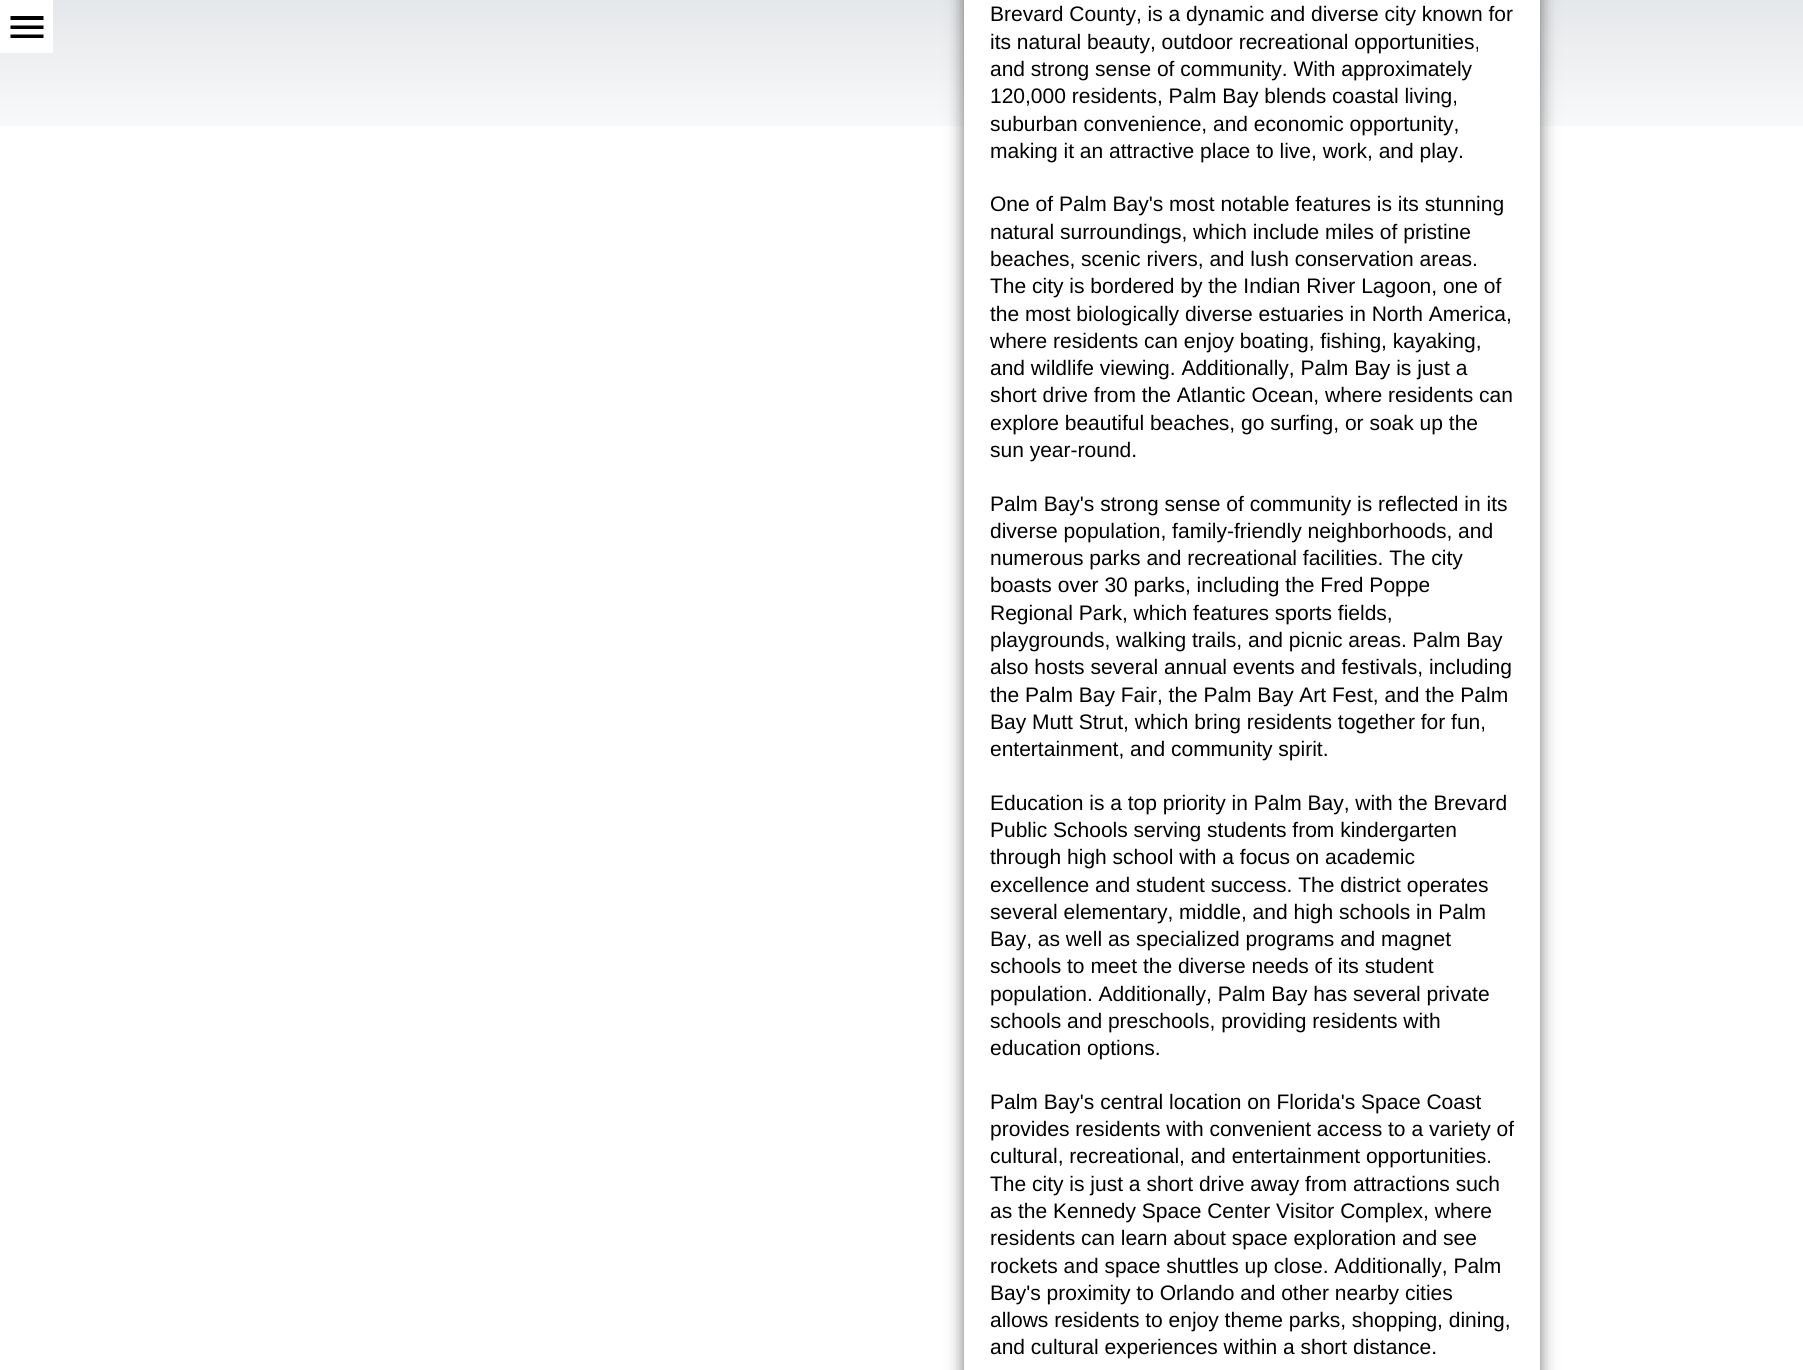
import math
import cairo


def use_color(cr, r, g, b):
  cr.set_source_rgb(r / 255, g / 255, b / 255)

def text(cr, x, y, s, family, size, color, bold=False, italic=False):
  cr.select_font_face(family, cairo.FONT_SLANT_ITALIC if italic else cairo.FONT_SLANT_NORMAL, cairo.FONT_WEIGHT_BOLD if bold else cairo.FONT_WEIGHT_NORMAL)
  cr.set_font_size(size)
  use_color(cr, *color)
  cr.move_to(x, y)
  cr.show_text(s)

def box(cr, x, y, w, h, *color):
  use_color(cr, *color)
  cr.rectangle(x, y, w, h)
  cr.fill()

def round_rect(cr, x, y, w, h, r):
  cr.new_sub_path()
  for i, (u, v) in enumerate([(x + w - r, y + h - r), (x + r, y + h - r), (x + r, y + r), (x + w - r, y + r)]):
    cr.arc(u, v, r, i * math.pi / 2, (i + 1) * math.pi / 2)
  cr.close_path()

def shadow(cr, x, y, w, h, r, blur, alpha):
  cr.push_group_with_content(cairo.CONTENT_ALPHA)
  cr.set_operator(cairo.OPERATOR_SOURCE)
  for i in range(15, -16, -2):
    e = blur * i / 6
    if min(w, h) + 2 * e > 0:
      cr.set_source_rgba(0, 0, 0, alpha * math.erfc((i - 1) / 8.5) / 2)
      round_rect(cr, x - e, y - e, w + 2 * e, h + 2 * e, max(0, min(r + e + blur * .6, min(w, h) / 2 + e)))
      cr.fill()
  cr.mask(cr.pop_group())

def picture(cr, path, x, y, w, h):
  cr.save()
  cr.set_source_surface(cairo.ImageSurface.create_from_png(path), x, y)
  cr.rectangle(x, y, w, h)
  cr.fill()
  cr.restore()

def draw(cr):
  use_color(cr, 255, 255, 255)
  cr.paint()
  picture(cr, "img_01.png", 0, 0, 1803, 126)
  box(cr, 0, 0, 53, 53, 255, 255, 255)
  use_color(cr, 0, 0, 0)
  cr.new_path()
  cr.move_to(10.5, 38)
  cr.line_to(43.5, 38)
  cr.line_to(43.5, 34.5)
  cr.line_to(10.5, 34.5)
  cr.close_path()
  cr.move_to(10.5, 29)
  cr.line_to(43.5, 29)
  cr.line_to(43.5, 25.5)
  cr.line_to(10.5, 25.5)
  cr.close_path()
  cr.move_to(10.5, 16)
  cr.line_to(10.5, 20)
  cr.line_to(43.5, 20)
  cr.line_to(43.5, 16)
  cr.close_path()
  cr.fill()
  use_color(cr, 0, 0, 0)
  shadow(cr, 964, -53, 576, 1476, 26, 9, 0.4)
  shadow(cr, 964, -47, 576, 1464, 26, 7, 0.2)
  box(cr, 964, 0, 576, 1370, 255, 255, 255)
  text(cr, 990, 21, "Brevard County, is a dynamic and diverse city known for", "Liberation Sans", 21, (0, 0, 0))
  text(cr, 990, 49, "its natural beauty, outdoor recreational opportunities,", "Liberation Sans", 21, (0, 0, 0))
  text(cr, 990, 76, "and strong sense of community. With approximately", "Liberation Sans", 21, (0, 0, 0))
  text(cr, 990, 103, "120,000 residents, Palm Bay blends coastal living,", "Liberation Sans", 21, (0, 0, 0))
  text(cr, 990, 131, "suburban convenience, and economic opportunity,", "Liberation Sans", 21, (0, 0, 0))
  text(cr, 990, 158, "making it an attractive place to live, work, and play.", "Liberation Sans", 21, (0, 0, 0))
  text(cr, 990, 211, "One of Palm Bay's most notable features is its stunning", "Liberation Sans", 21, (0, 0, 0))
  text(cr, 990, 239, "natural surroundings, which include miles of pristine", "Liberation Sans", 21, (0, 0, 0))
  text(cr, 990, 266, "beaches, scenic rivers, and lush conservation areas.", "Liberation Sans", 21, (0, 0, 0))
  text(cr, 990, 293, "The city is bordered by the Indian River Lagoon, one of", "Liberation Sans", 21, (0, 0, 0))
  text(cr, 990, 321, "the most biologically diverse estuaries in North America,", "Liberation Sans", 21, (0, 0, 0))
  text(cr, 990, 348, "where residents can enjoy boating, fishing, kayaking,", "Liberation Sans", 21, (0, 0, 0))
  text(cr, 990, 375, "and wildlife viewing. Additionally, Palm Bay is just a", "Liberation Sans", 21, (0, 0, 0))
  text(cr, 990, 402, "short drive from the Atlantic Ocean, where residents can", "Liberation Sans", 21, (0, 0, 0))
  text(cr, 990, 430, "explore beautiful beaches, go surfing, or soak up the", "Liberation Sans", 21, (0, 0, 0))
  text(cr, 990, 457, "sun year-round.", "Liberation Sans", 21, (0, 0, 0))
  text(cr, 990, 511, "Palm Bay's strong sense of community is reflected in its", "Liberation Sans", 21, (0, 0, 0))
  text(cr, 990, 538, "diverse population, family-friendly neighborhoods, and", "Liberation Sans", 21, (0, 0, 0))
  text(cr, 990, 565, "numerous parks and recreational facilities. The city", "Liberation Sans", 21, (0, 0, 0))
  text(cr, 990, 592, "boasts over 30 parks, including the Fred Poppe", "Liberation Sans", 21, (0, 0, 0))
  text(cr, 990, 620, "Regional Park, which features sports fields,", "Liberation Sans", 21, (0, 0, 0))
  text(cr, 990, 647, "playgrounds, walking trails, and picnic areas. Palm Bay", "Liberation Sans", 21, (0, 0, 0))
  text(cr, 990, 674, "also hosts several annual events and festivals, including", "Liberation Sans", 21, (0, 0, 0))
  text(cr, 990, 702, "the Palm Bay Fair, the Palm Bay Art Fest, and the Palm", "Liberation Sans", 21, (0, 0, 0))
  text(cr, 990, 729, "Bay Mutt Strut, which bring residents together for fun,", "Liberation Sans", 21, (0, 0, 0))
  text(cr, 990, 756, "entertainment, and community spirit.", "Liberation Sans", 21, (0, 0, 0))
  text(cr, 990, 810, "Education is a top priority in Palm Bay, with the Brevard", "Liberation Sans", 21, (0, 0, 0))
  text(cr, 990, 837, "Public Schools serving students from kindergarten", "Liberation Sans", 21, (0, 0, 0))
  text(cr, 990, 864, "through high school with a focus on academic", "Liberation Sans", 21, (0, 0, 0))
  text(cr, 990, 892, "excellence and student success. The district operates", "Liberation Sans", 21, (0, 0, 0))
  text(cr, 990, 919, "several elementary, middle, and high schools in Palm", "Liberation Sans", 21, (0, 0, 0))
  text(cr, 990, 946, "Bay, as well as specialized programs and magnet", "Liberation Sans", 21, (0, 0, 0))
  text(cr, 990, 973, "schools to meet the diverse needs of its student", "Liberation Sans", 21, (0, 0, 0))
  text(cr, 990, 1001, "population. Additionally, Palm Bay has several private", "Liberation Sans", 21, (0, 0, 0))
  text(cr, 990, 1028, "schools and preschools, providing residents with", "Liberation Sans", 21, (0, 0, 0))
  text(cr, 990, 1055, "education options.", "Liberation Sans", 21, (0, 0, 0))
  text(cr, 990, 1109, "Palm Bay's central location on Florida's Space Coast", "Liberation Sans", 21, (0, 0, 0))
  text(cr, 990, 1136, "provides residents with convenient access to a variety of", "Liberation Sans", 21, (0, 0, 0))
  text(cr, 990, 1163, "cultural, recreational, and entertainment opportunities.", "Liberation Sans", 21, (0, 0, 0))
  text(cr, 990, 1191, "The city is just a short drive away from attractions such", "Liberation Sans", 21, (0, 0, 0))
  text(cr, 990, 1218, "as the Kennedy Space Center Visitor Complex, where", "Liberation Sans", 21, (0, 0, 0))
  text(cr, 990, 1245, "residents can learn about space exploration and see", "Liberation Sans", 21, (0, 0, 0))
  text(cr, 990, 1273, "rockets and space shuttles up close. Additionally, Palm", "Liberation Sans", 21, (0, 0, 0))
  text(cr, 990, 1300, "Bay's proximity to Orlando and other nearby cities", "Liberation Sans", 21, (0, 0, 0))
  text(cr, 990, 1327, "allows residents to enjoy theme parks, shopping, dining,", "Liberation Sans", 21, (0, 0, 0))
  text(cr, 990, 1354, "and cultural experiences within a short distance.", "Liberation Sans", 21, (0, 0, 0))


surface = cairo.ImageSurface(cairo.FORMAT_RGB24, 1803, 1370)
cr = cairo.Context(surface)
options = cairo.FontOptions()
options.set_hint_metrics(cairo.HINT_METRICS_OFF)
options.set_hint_style(cairo.HINT_STYLE_NONE)
cr.set_font_options(options)
cr.set_miter_limit(4)
draw(cr)
surface.write_to_png("out.png")
